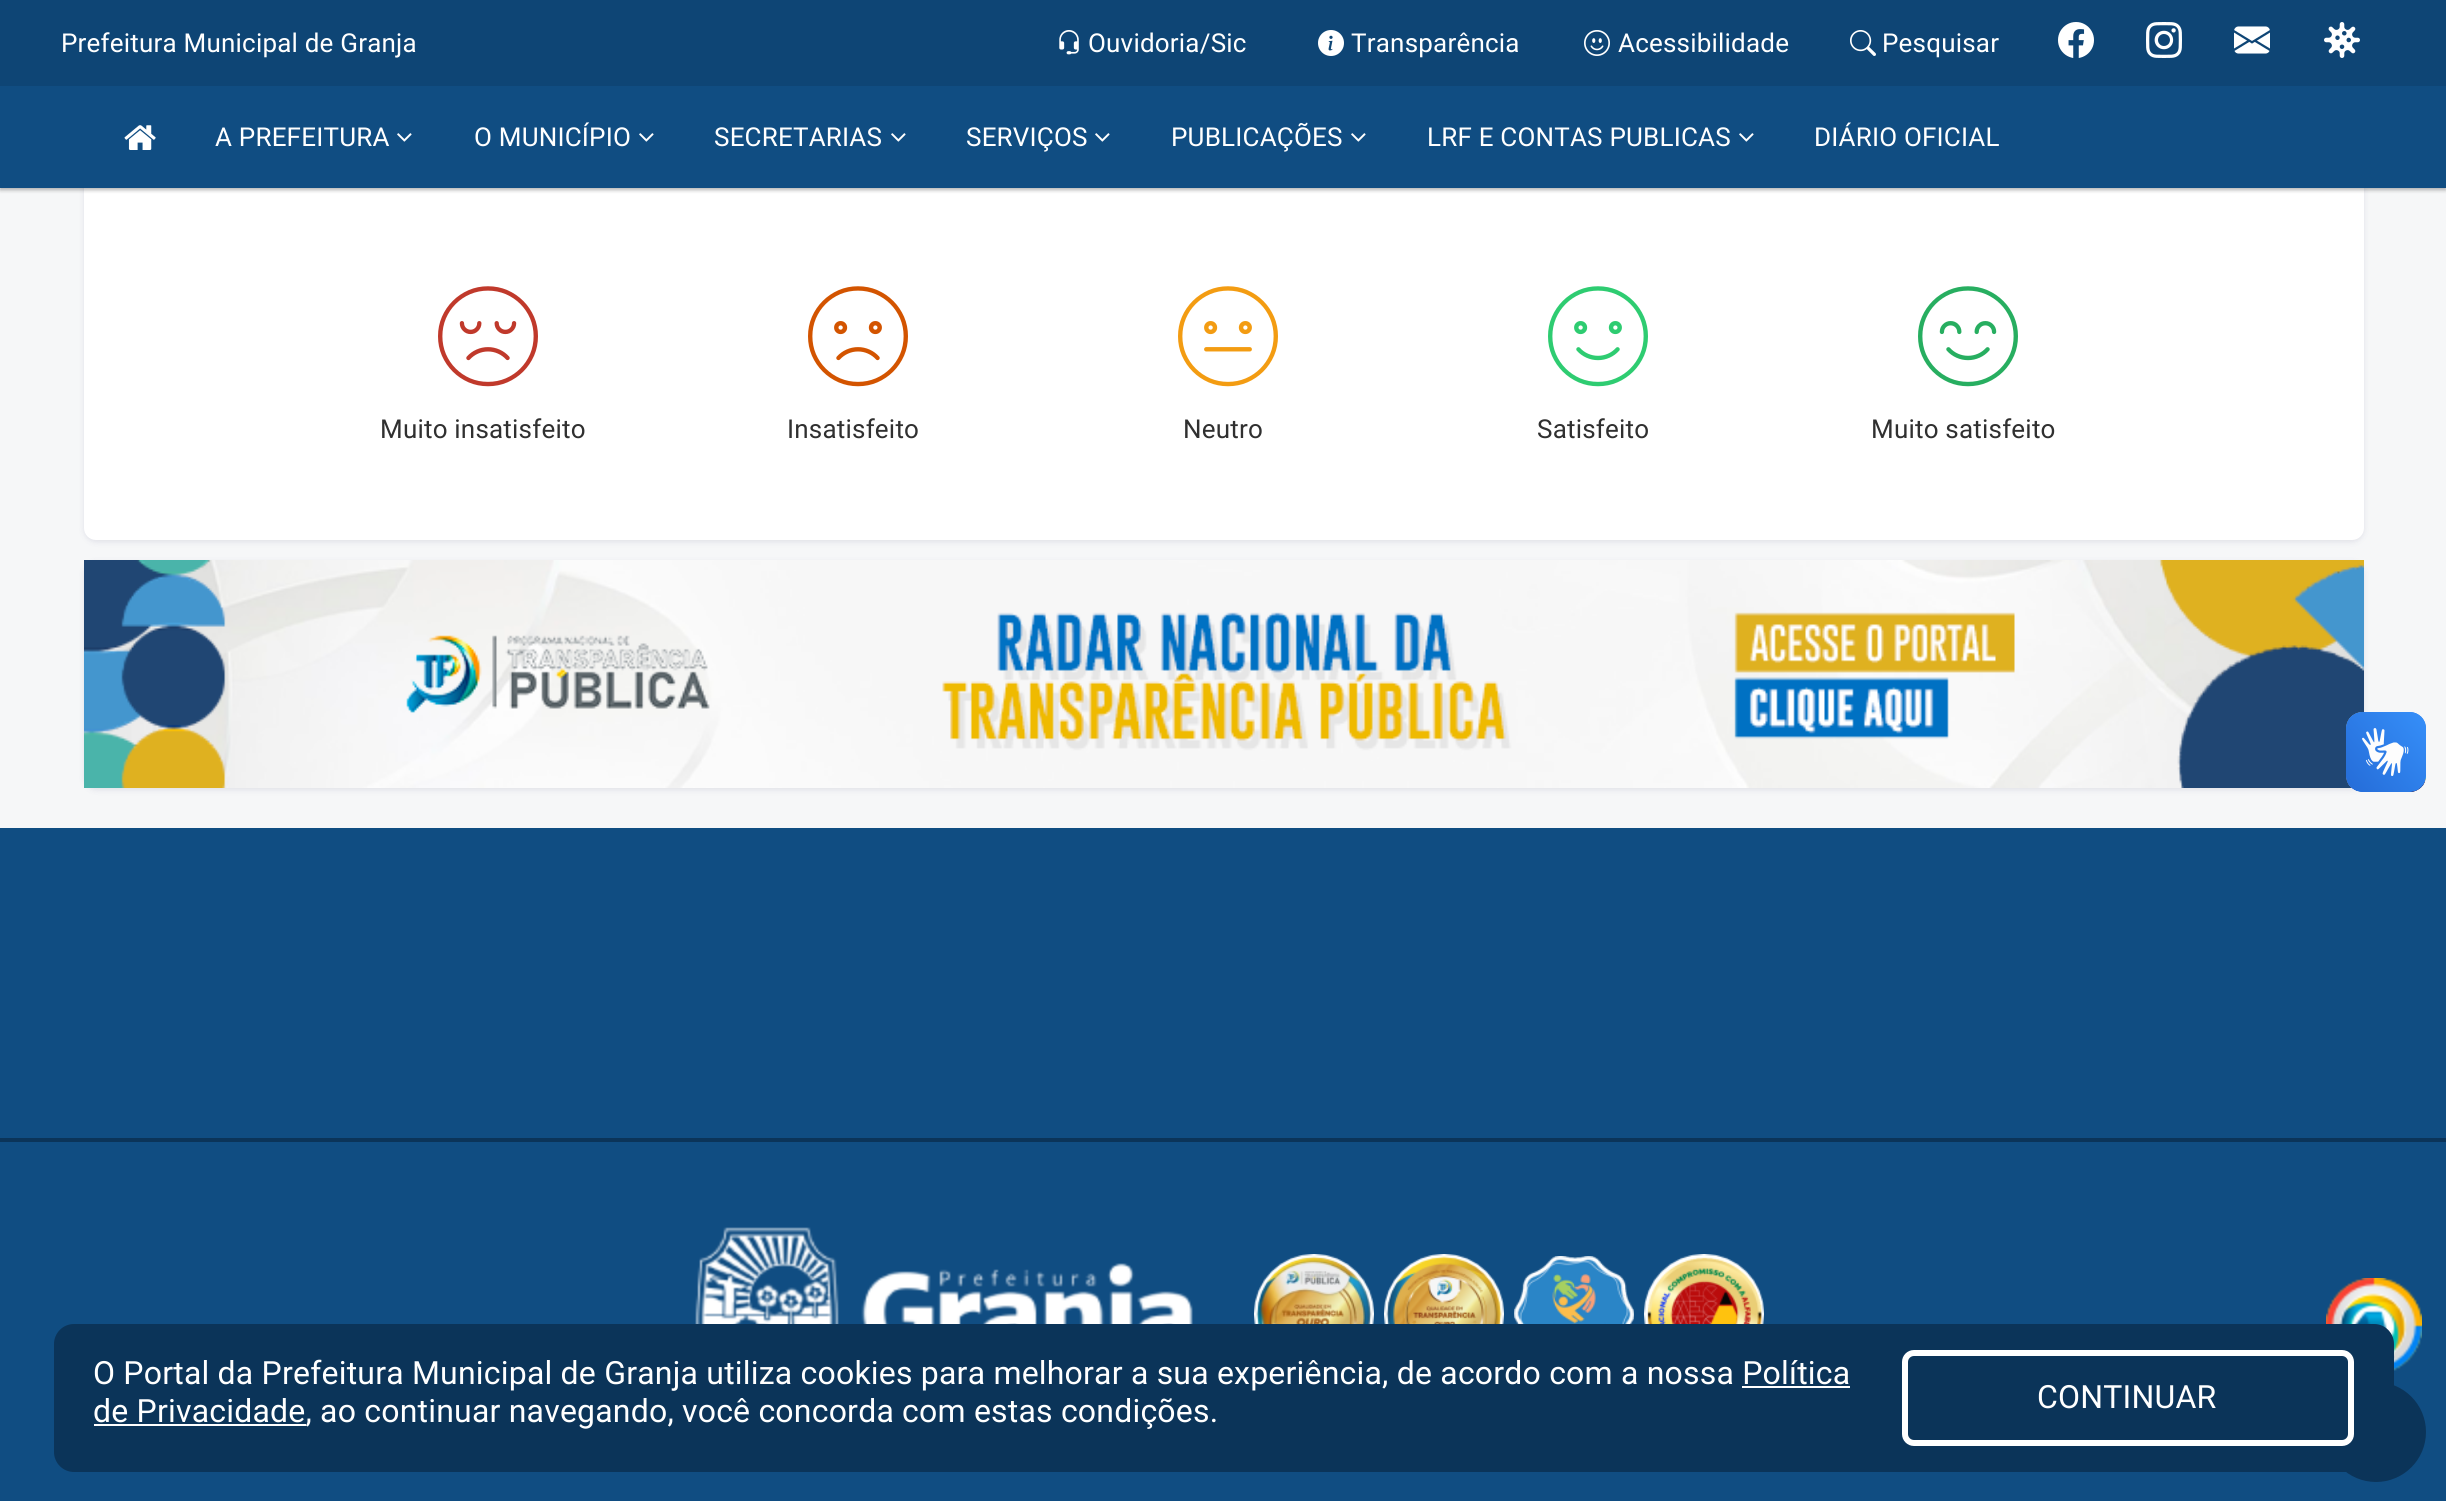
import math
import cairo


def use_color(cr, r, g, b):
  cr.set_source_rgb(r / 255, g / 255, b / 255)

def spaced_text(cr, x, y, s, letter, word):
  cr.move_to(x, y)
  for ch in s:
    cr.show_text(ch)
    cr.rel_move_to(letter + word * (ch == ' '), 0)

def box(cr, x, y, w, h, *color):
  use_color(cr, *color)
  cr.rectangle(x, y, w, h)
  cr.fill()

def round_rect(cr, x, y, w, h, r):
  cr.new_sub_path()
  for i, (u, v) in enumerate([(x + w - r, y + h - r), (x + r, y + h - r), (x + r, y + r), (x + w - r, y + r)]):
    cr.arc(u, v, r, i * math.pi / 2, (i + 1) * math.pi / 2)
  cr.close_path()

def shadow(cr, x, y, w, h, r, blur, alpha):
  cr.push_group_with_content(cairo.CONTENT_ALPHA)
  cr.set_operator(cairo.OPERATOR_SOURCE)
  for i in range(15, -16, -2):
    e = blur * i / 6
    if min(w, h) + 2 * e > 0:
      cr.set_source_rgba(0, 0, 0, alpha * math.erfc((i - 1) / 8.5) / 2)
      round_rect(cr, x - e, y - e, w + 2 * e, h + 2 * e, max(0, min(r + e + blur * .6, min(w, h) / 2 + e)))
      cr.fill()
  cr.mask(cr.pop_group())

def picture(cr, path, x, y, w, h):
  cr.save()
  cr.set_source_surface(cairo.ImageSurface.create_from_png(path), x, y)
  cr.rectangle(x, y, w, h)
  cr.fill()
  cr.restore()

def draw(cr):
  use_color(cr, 246, 247, 248)
  cr.paint()
  use_color(cr, 3, 0, 71)
  shadow(cr, 84, 108, 2280, 434, 12, 3, 0.09)
  use_color(cr, 255, 255, 255)
  round_rect(cr, 84, 106, 2280, 434, 12)
  cr.fill()
  use_color(cr, 0, 0, 0)
  shadow(cr, 0, 2, 2446, 188, 0, 2, 0.3)
  box(cr, 0, 0, 2446, 86, 14, 69, 117)
  picture(cr, "img_01.png", 1059, 30, 20, 25)
  picture(cr, "img_02.png", 1318, 30, 26, 26)
  picture(cr, "img_03.png", 1584, 30, 26, 26)
  picture(cr, "img_04.png", 1850, 30, 26, 26)
  picture(cr, "img_05.png", 2058, 22, 36, 36)
  picture(cr, "img_06.png", 2146, 22, 36, 36)
  picture(cr, "img_07.png", 2234, 26, 36, 28)
  picture(cr, "img_08.png", 2324, 22, 36, 36)
  box(cr, 0, 86, 2446, 102, 16, 77, 130)
  picture(cr, "img_09.png", 124, 125, 32, 25)
  picture(cr, "img_10.png", 397, 133, 15, 9)
  picture(cr, "img_10.png", 639, 133, 15, 9)
  picture(cr, "img_10.png", 891, 133, 15, 9)
  picture(cr, "img_10.png", 1095, 133, 15, 9)
  picture(cr, "img_10.png", 1351, 133, 15, 9)
  picture(cr, "img_10.png", 1739, 133, 15, 9)
  picture(cr, "img_11.png", 438, 286, 100, 101)
  picture(cr, "img_12.png", 808, 286, 100, 101)
  picture(cr, "img_13.png", 1178, 286, 100, 101)
  picture(cr, "img_14.png", 1548, 286, 100, 101)
  picture(cr, "img_15.png", 1918, 286, 100, 101)
  use_color(cr, 3, 0, 71)
  shadow(cr, 84, 562, 2280, 228, 12, 3, 0.09)
  picture(cr, "img_16.png", 84, 560, 2280, 228)
  picture(cr, "img_17.png", 2346, 712, 80, 80)
  picture(cr, "img_18.png", 2346, 712, 80, 80)
  box(cr, 0, 828, 2446, 673, 16, 77, 130)
  box(cr, 0, 1138, 2446, 4, 11, 52, 89)
  picture(cr, "img_19.png", 695, 1227, 498, 97)
  picture(cr, "img_20.png", 1254, 1254, 120, 70)
  picture(cr, "img_21.png", 1384, 1254, 120, 70)
  picture(cr, "img_22.png", 1514, 1256, 120, 68)
  picture(cr, "img_23.png", 1644, 1254, 120, 70)
  picture(cr, "img_24.png", 2326, 1278, 96, 93)
  cr.arc(2376, 1432, 50, 0, 2 * math.pi)
  cr.fill()
  round_rect(cr, 54, 1324, 2340, 148, 20)
  cr.fill()
  box(cr, 1742, 1386, 108, 2, 255, 255, 255)
  box(cr, 94, 1424, 212, 2, 255, 255, 255)
  round_rect(cr, 1905, 1353, 446, 90, 9)
  cr.set_line_width(6)
  cr.stroke()
  cr.select_font_face("Roboto")
  cr.set_font_size(26)
  spaced_text(cr, 61, 52, "Prefeitura Municipal de Granja", 0.2, 0)
  spaced_text(cr, 1088, 52, "Ouvidoria/Sic", 0.2, 0)
  spaced_text(cr, 1351, 52, "Transparência", 0.2, 0)
  spaced_text(cr, 1618, 52, "Acessibilidade", 0.2, 0)
  spaced_text(cr, 1882, 52, "Pesquisar", 0.2, 0)
  spaced_text(cr, 215, 146, "A PREFEITURA", 0.2, 0)
  spaced_text(cr, 474, 146, "O MUNICÍPIO", 0.2, 0)
  spaced_text(cr, 714, 146, "SECRETARIAS", 0.2, 0)
  spaced_text(cr, 966, 146, "SERVIÇOS", 0.2, 0)
  spaced_text(cr, 1171, 146, "PUBLICAÇÕES", 0.2, 0)
  spaced_text(cr, 1427, 146, "LRF E CONTAS PUBLICAS", 0.2, 0)
  spaced_text(cr, 1814, 146, "DIÁRIO OFICIAL", 0.2, 0)
  use_color(cr, 48, 48, 48)
  spaced_text(cr, 380, 438, "Muito insatisfeito", 0.2, 0)
  spaced_text(cr, 787, 438, "Insatisfeito", 0.2, 0)
  spaced_text(cr, 1183, 438, "Neutro", 0.2, 0)
  spaced_text(cr, 1537, 438, "Satisfeito", 0.2, 0)
  spaced_text(cr, 1871, 438, "Muito satisfeito", 0.2, 0)
  cr.set_font_size(32)
  use_color(cr, 255, 255, 255)
  spaced_text(cr, 93, 1384, "O Portal da Prefeitura Municipal de Granja utiliza cookies para melhorar a sua experiência, de acordo com a nossa Política", 0.2, 0)
  spaced_text(cr, 93, 1422, "de Privacidade, ao continuar navegando, você concorda com estas condições.", 0.2, 0)
  spaced_text(cr, 2037, 1408, "CONTINUAR", 0.2, 0)


surface = cairo.ImageSurface(cairo.FORMAT_RGB24, 2446, 1501)
cr = cairo.Context(surface)
options = cairo.FontOptions()
options.set_hint_metrics(cairo.HINT_METRICS_OFF)
options.set_hint_style(cairo.HINT_STYLE_NONE)
cr.set_font_options(options)
cr.set_miter_limit(4)
draw(cr)
surface.write_to_png("out.png")
